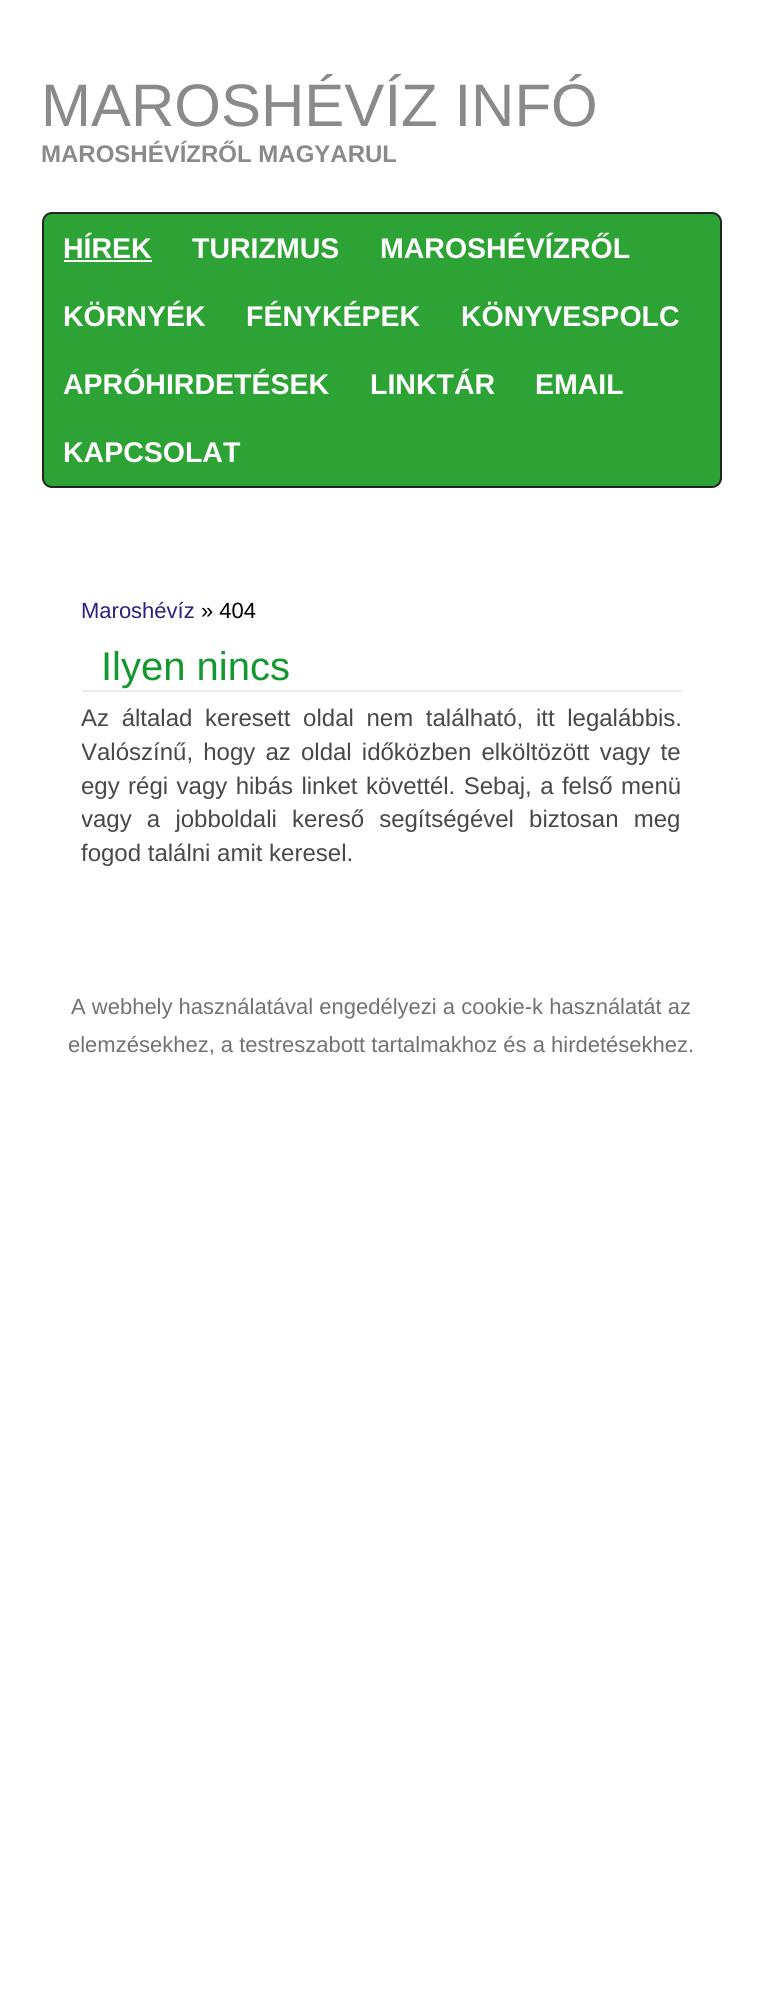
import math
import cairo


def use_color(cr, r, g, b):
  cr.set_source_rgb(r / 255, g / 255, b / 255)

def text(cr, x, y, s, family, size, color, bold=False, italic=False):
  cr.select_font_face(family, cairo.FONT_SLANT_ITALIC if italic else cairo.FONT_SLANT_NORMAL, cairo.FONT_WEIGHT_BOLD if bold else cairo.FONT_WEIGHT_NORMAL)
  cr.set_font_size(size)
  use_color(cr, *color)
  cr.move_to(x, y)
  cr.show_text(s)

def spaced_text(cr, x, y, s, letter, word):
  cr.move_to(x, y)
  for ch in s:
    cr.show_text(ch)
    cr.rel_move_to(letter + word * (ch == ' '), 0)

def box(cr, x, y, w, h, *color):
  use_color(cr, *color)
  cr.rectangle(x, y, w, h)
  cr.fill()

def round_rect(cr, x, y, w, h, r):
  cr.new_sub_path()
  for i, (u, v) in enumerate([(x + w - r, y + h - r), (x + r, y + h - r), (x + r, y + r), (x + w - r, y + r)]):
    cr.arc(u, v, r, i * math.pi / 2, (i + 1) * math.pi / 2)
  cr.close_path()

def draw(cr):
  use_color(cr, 255, 255, 255)
  cr.paint()
  use_color(cr, 44, 163, 52)
  round_rect(cr, 43, 213, 678, 274, 9)
  cr.fill_preserve()
  use_color(cr, 36, 36, 36)
  cr.stroke()
  box(cr, 64, 260, 88, 2, 255, 255, 255)
  box(cr, 82, 690, 600, 2, 235, 235, 235)
  text(cr, 41, 126, "MAROSHÉVÍZ INFÓ", "Liberation Sans", 60, (138, 138, 138))
  text(cr, 41, 162, "MAROSHÉVÍZRŐL MAGYARUL", "Liberation Sans", 24, (138, 138, 138), bold=True)
  text(cr, 63, 258, "HÍREK", "Liberation Sans", 28.5, (255, 255, 255), bold=True)
  text(cr, 192, 258, "TURIZMUS", "Liberation Sans", 28.5, (255, 255, 255), bold=True)
  text(cr, 380, 258, "MAROSHÉVÍZRŐL", "Liberation Sans", 28.5, (255, 255, 255), bold=True)
  text(cr, 63, 326, "KÖRNYÉK", "Liberation Sans", 28.5, (255, 255, 255), bold=True)
  text(cr, 246, 326, "FÉNYKÉPEK", "Liberation Sans", 28.5, (255, 255, 255), bold=True)
  text(cr, 461, 326, "KÖNYVESPOLC", "Liberation Sans", 28.5, (255, 255, 255), bold=True)
  text(cr, 63, 394, "APRÓHIRDETÉSEK", "Liberation Sans", 28.5, (255, 255, 255), bold=True)
  text(cr, 370, 394, "LINKTÁR", "Liberation Sans", 28.5, (255, 255, 255), bold=True)
  text(cr, 535, 394, "EMAIL", "Liberation Sans", 28.5, (255, 255, 255), bold=True)
  text(cr, 63, 462, "KAPCSOLAT", "Liberation Sans", 28.5, (255, 255, 255), bold=True)
  text(cr, 81, 618, "Maroshévíz", "Liberation Sans", 22, (43, 32, 126))
  text(cr, 201, 618, "» 404", "Liberation Sans", 22, (0, 0, 0))
  text(cr, 101, 680, "Ilyen nincs", "Liberation Sans", 40, (19, 151, 48))
  cr.set_font_size(24)
  use_color(cr, 72, 72, 72)
  spaced_text(cr, 81, 726, "Az általad keresett oldal nem található, itt legalábbis.", 0, 6)
  cr.save()
  cr.rectangle(82, 692, 600, 198)
  cr.clip()
  spaced_text(cr, 81, 760, "Valószínű, hogy az oldal időközben elköltözött vagy te", 0, 3.5)
  cr.restore()
  spaced_text(cr, 81, 794, "egy régi vagy hibás linket követtél. Sebaj, a felső menü", 0, 1.75)
  cr.save()
  cr.rectangle(82, 692, 600, 198)
  cr.clip()
  spaced_text(cr, 81, 827, "vagy a jobboldali kereső segítségével biztosan meg", 0, 8.5)
  cr.restore()
  text(cr, 81, 861, "fogod találni amit keresel.", "Liberation Sans", 24, (72, 72, 72))
  text(cr, 71, 1014, "A webhely használatával engedélyezi a cookie-k használatát az", "Liberation Sans", 22, (114, 114, 114))
  text(cr, 68, 1052, "elemzésekhez, a testreszabott tartalmakhoz és a hirdetésekhez.", "Liberation Sans", 22, (114, 114, 114))


surface = cairo.ImageSurface(cairo.FORMAT_RGB24, 762, 1997)
cr = cairo.Context(surface)
options = cairo.FontOptions()
options.set_hint_metrics(cairo.HINT_METRICS_OFF)
options.set_hint_style(cairo.HINT_STYLE_NONE)
cr.set_font_options(options)
cr.set_miter_limit(4)
draw(cr)
surface.write_to_png("out.png")
